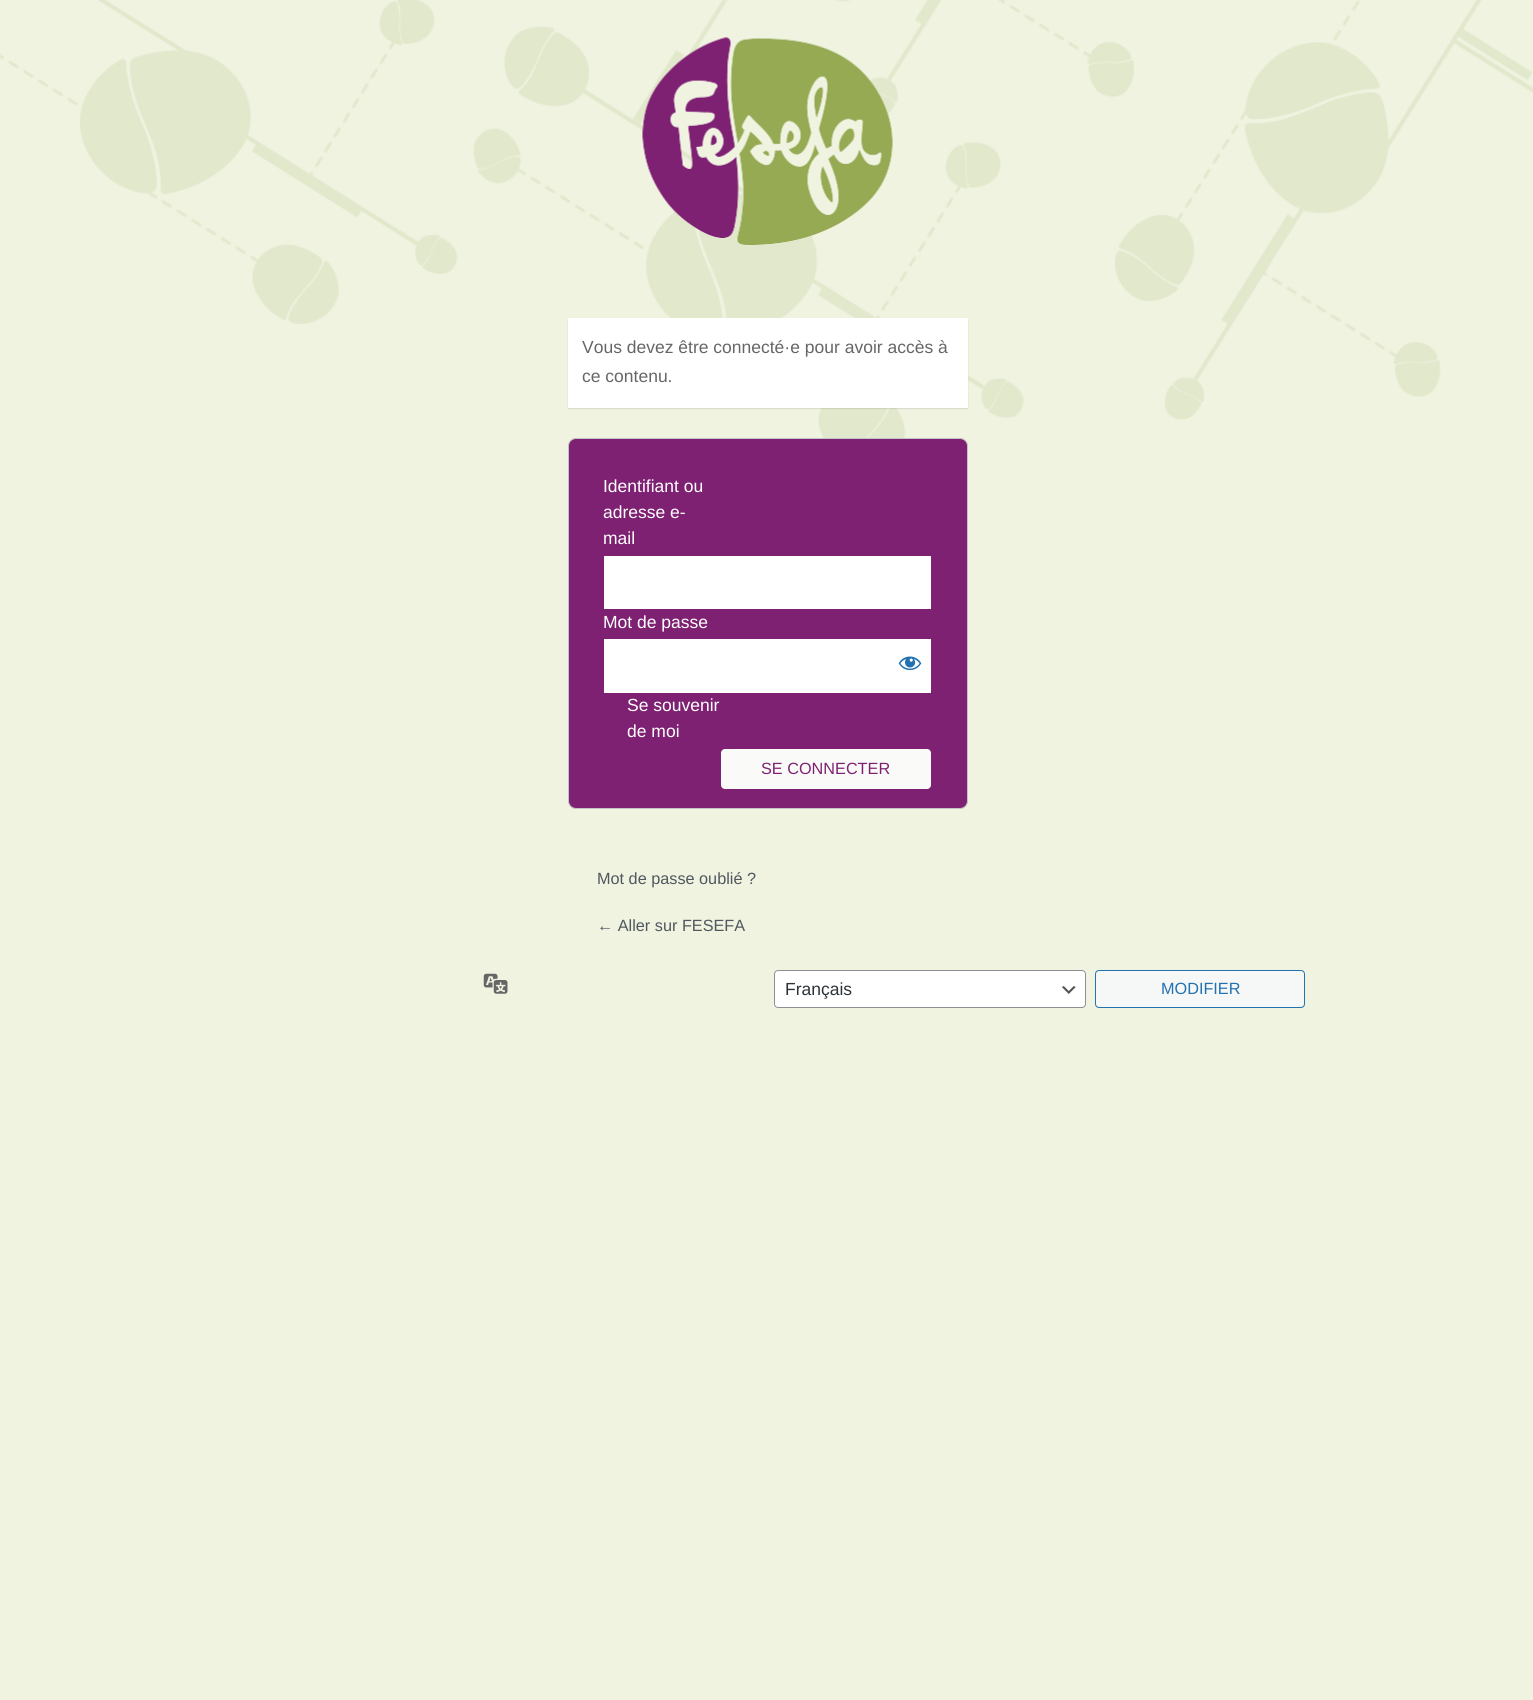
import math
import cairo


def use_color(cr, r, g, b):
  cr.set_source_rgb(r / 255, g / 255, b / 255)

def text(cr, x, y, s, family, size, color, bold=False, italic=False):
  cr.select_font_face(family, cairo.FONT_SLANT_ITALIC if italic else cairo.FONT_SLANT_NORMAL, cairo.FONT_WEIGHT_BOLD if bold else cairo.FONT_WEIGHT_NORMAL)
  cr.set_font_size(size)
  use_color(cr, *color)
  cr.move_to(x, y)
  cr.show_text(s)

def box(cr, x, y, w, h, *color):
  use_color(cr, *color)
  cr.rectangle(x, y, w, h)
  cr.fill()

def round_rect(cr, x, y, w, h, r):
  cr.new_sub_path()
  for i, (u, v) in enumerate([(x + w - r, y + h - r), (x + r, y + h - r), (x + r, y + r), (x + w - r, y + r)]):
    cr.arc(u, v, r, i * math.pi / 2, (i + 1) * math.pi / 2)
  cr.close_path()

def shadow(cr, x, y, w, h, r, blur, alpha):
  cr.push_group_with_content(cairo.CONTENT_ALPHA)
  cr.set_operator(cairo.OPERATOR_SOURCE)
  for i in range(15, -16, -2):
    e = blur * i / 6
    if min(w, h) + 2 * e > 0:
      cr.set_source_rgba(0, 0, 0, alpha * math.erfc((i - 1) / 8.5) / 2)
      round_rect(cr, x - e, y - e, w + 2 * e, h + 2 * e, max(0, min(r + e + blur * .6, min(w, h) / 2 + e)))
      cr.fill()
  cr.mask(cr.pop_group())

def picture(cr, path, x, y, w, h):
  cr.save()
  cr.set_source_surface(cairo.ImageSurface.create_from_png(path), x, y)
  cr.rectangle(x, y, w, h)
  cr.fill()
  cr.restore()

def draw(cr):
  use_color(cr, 239, 243, 224)
  cr.paint()
  picture(cr, "img_01.png", 0, 0, 1533, 468)
  picture(cr, "img_02.png", 642, 37, 251, 208)
  use_color(cr, 0, 0, 0)
  shadow(cr, 568, 319, 400, 90, 0, 0.5, 0.1)
  box(cr, 568, 318, 400, 90, 255, 255, 255)
  use_color(cr, 126, 33, 114)
  round_rect(cr, 568.5, 438.5, 399, 370, 7.5)
  cr.fill_preserve()
  use_color(cr, 195, 196, 199)
  cr.set_line_width(1)
  cr.stroke()
  box(cr, 604, 556, 327, 53, 255, 255, 255)
  box(cr, 604, 639, 327, 54, 255, 255, 255)
  picture(cr, "img_03.png", 898, 656, 24, 15)
  use_color(cr, 250, 251, 248)
  round_rect(cr, 721, 749, 210, 40, 4)
  cr.fill()
  picture(cr, "img_04.png", 483, 973, 25, 21)
  use_color(cr, 255, 255, 255)
  round_rect(cr, 774, 970, 312, 38, 4)
  cr.fill()
  picture(cr, "img_05.png", 1062, 986, 14, 8)
  round_rect(cr, 774.5, 970.5, 311, 37, 3.5)
  use_color(cr, 140, 143, 148)
  cr.stroke()
  use_color(cr, 246, 247, 247)
  round_rect(cr, 1095.5, 970.5, 209, 37, 3.5)
  cr.fill_preserve()
  use_color(cr, 34, 113, 177)
  cr.stroke()
  text(cr, 582, 353, "Vous devez être connecté·e pour avoir accès à", "Liberation Sans", 17.5, (102, 102, 102))
  text(cr, 582, 382, "ce contenu.", "Liberation Sans", 17.5, (102, 102, 102))
  text(cr, 603, 492, "Identifiant ou", "Liberation Sans", 17.5, (255, 255, 255))
  text(cr, 603, 518, "adresse e-", "Liberation Sans", 17.5, (255, 255, 255))
  text(cr, 603, 544, "mail", "Liberation Sans", 17.5, (255, 255, 255))
  text(cr, 603, 628, "Mot de passe", "Liberation Sans", 17.5, (255, 255, 255))
  text(cr, 627, 711, "Se souvenir", "Liberation Sans", 17.5, (255, 255, 255))
  text(cr, 627, 737, "de moi", "Liberation Sans", 17.5, (255, 255, 255))
  text(cr, 761, 774, "SE CONNECTER", "Liberation Sans", 16.25, (126, 33, 114))
  text(cr, 597, 884, "Mot de passe oublié ?", "Liberation Sans", 16.25, (80, 87, 94))
  text(cr, 597, 931, "← Aller sur FESEFA", "Liberation Sans", 16.25, (80, 87, 94))
  text(cr, 785, 995, "Français", "Liberation Sans", 17.5, (44, 51, 56))
  text(cr, 1161, 994, "MODIFIER", "Liberation Sans", 16.25, (34, 113, 177))


surface = cairo.ImageSurface(cairo.FORMAT_RGB24, 1533, 1700)
cr = cairo.Context(surface)
options = cairo.FontOptions()
options.set_hint_metrics(cairo.HINT_METRICS_OFF)
options.set_hint_style(cairo.HINT_STYLE_NONE)
cr.set_font_options(options)
cr.set_miter_limit(4)
draw(cr)
surface.write_to_png("out.png")
